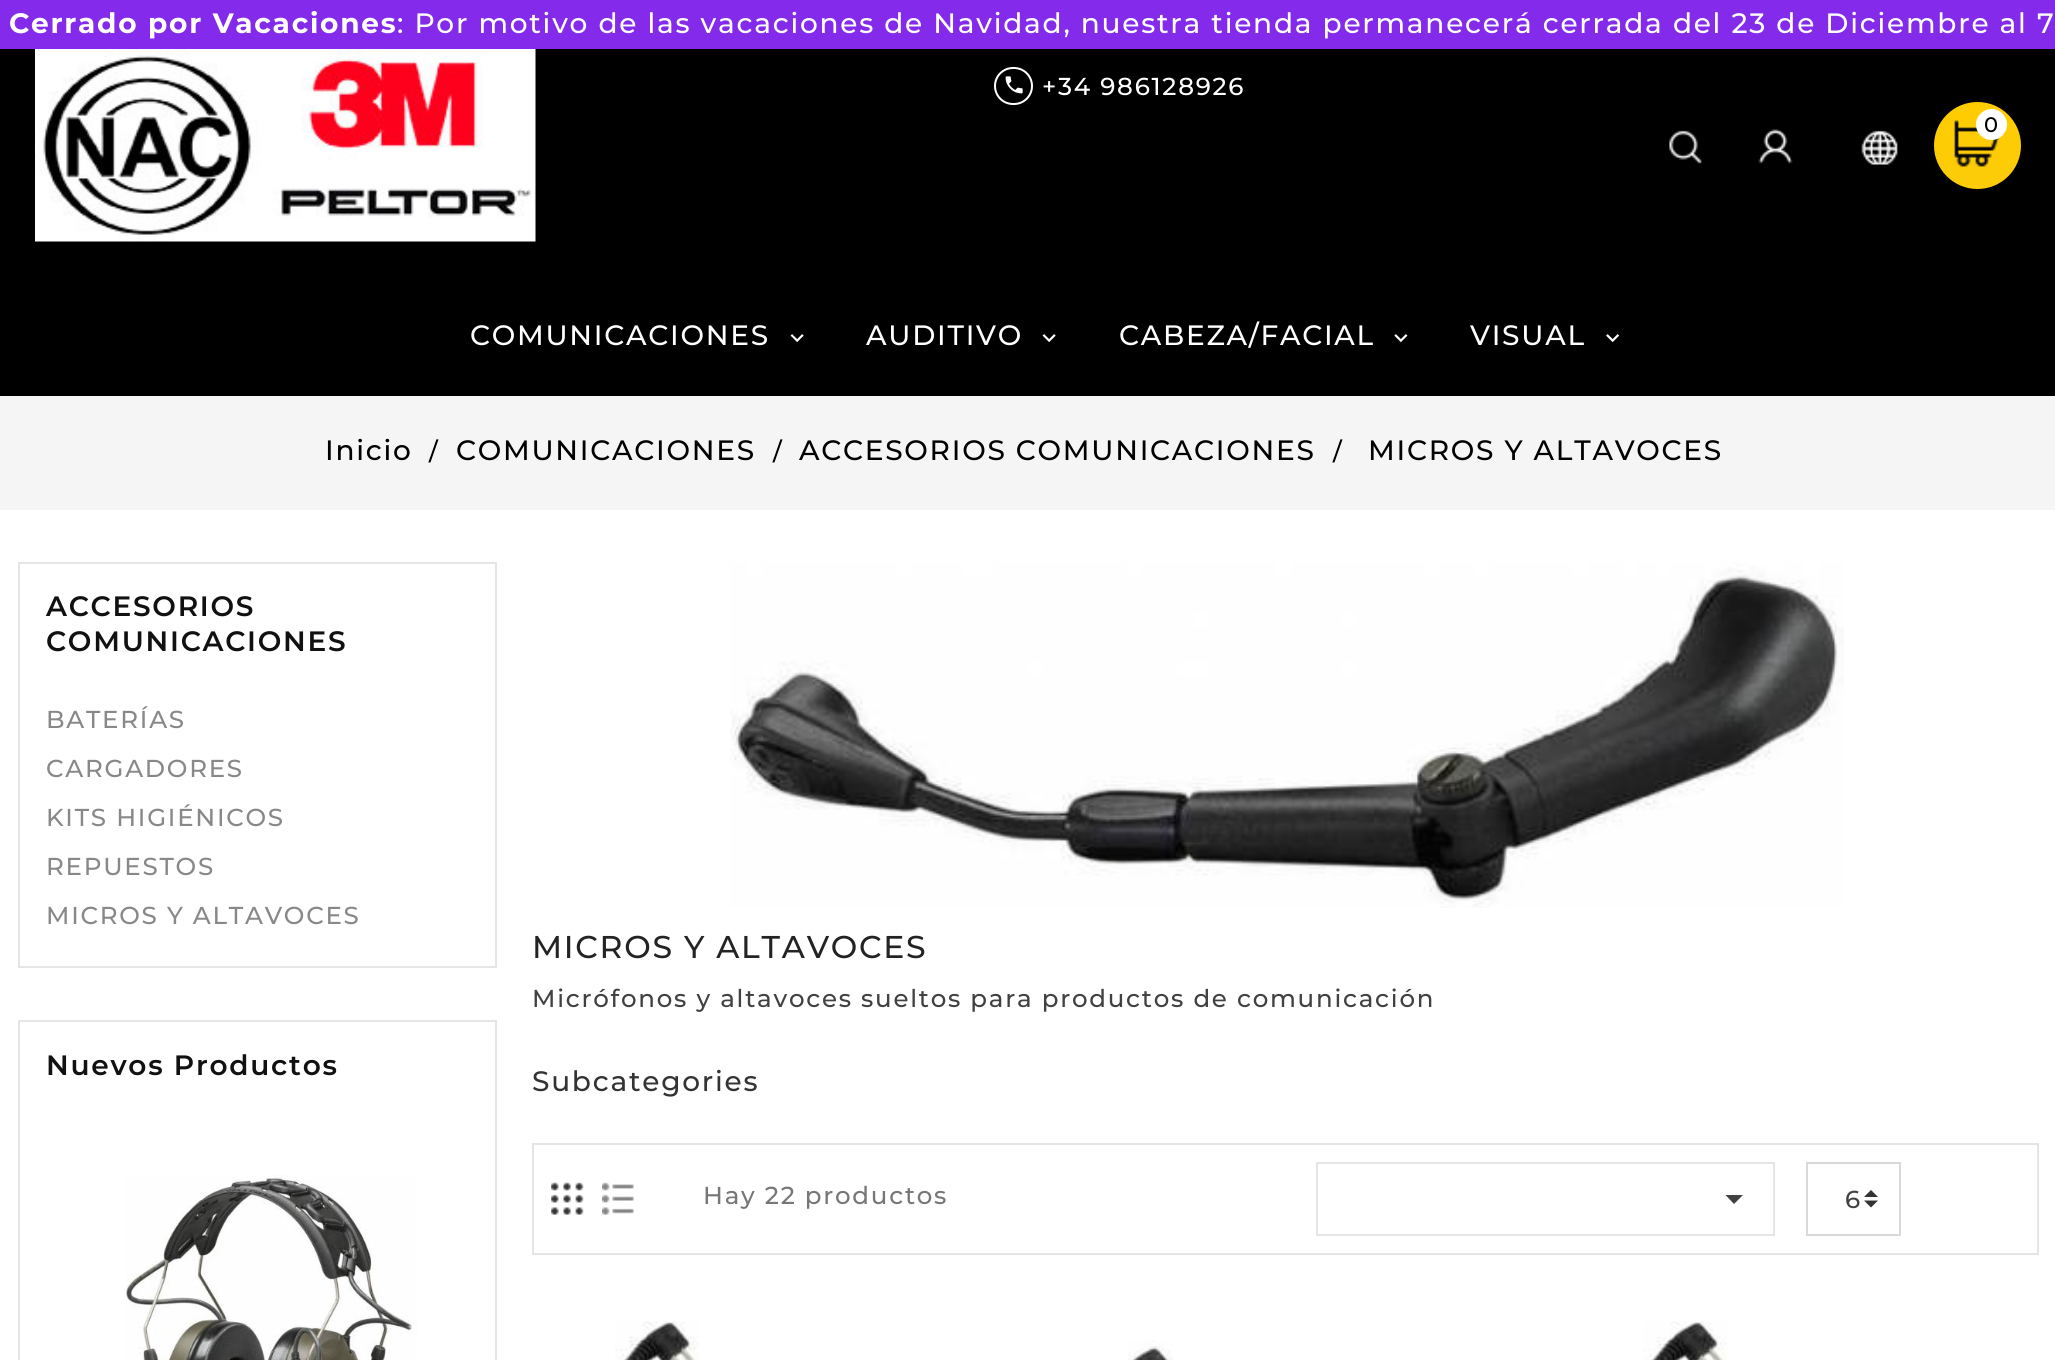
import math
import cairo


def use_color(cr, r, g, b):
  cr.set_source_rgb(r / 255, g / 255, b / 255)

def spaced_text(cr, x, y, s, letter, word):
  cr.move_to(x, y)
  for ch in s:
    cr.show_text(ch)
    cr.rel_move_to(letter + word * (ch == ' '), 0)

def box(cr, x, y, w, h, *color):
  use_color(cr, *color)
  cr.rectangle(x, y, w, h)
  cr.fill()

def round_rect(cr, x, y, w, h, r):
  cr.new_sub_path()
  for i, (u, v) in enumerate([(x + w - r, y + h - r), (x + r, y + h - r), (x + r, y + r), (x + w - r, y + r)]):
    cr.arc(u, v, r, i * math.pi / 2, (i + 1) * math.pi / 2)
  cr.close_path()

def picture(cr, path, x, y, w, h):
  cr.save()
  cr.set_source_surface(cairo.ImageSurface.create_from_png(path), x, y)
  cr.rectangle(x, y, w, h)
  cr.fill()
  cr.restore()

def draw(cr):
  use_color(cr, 255, 255, 255)
  cr.paint()
  box(cr, 0, 0, 2055, 49, 132, 42, 235)
  box(cr, 0, 49, 2055, 347, 0, 0, 0)
  picture(cr, "img_01.png", 35, 49, 501, 193)
  round_rect(cr, 995, 68, 37, 36, 18)
  use_color(cr, 255, 255, 255)
  cr.stroke()
  picture(cr, "img_02.png", 1005, 76, 18, 18)
  gradient = cairo.LinearGradient(1978, 102, 1978, 189)
  gradient.add_color_stop_rgba(0, 1, 0.8, 0, 1)
  gradient.add_color_stop_rgba(1, 0.992, 0.8, 0.039, 1)
  cr.set_source(gradient)
  cr.arc(1977.5, 145.5, 43.5, 0, 2 * math.pi)
  cr.fill()
  picture(cr, "img_03.png", 1954, 120, 45, 47)
  use_color(cr, 255, 255, 255)
  cr.arc(1991.5, 124.5, 15.5, 0, 2 * math.pi)
  cr.fill()
  picture(cr, "img_04.png", 1669, 130, 33, 34)
  picture(cr, "img_05.png", 1758, 129, 35, 35)
  picture(cr, "img_06.png", 1861, 130, 37, 35)
  picture(cr, "img_07.png", 790, 334, 14, 9)
  picture(cr, "img_07.png", 1042, 334, 14, 9)
  picture(cr, "img_08.png", 1394, 334, 14, 9)
  picture(cr, "img_09.png", 1606, 334, 14, 9)
  box(cr, 0, 396, 2055, 114, 245, 245, 245)
  cr.rectangle(19, 563, 477, 404)
  use_color(cr, 229, 229, 229)
  cr.stroke()
  cr.rectangle(19, 1021, 477, 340)
  cr.stroke()
  picture(cr, "img_10.png", 126, 1175, 291, 185)
  picture(cr, "img_11.png", 730, 562, 1114, 346)
  cr.rectangle(533, 1144, 1505, 110)
  cr.stroke()
  picture(cr, "img_12.png", 551, 1182, 33, 33)
  picture(cr, "img_13.png", 602, 1182, 32, 33)
  cr.rectangle(1317, 1163, 457, 72)
  cr.stroke()
  use_color(cr, 65, 65, 65)
  cr.new_path()
  cr.move_to(1725.5, 1195)
  cr.line_to(1743, 1195)
  cr.line_to(1734, 1204)
  cr.close_path()
  cr.fill()
  use_color(cr, 51, 51, 51)
  cr.new_path()
  cr.move_to(1871, 1190)
  cr.line_to(1864, 1197)
  cr.line_to(1878, 1197)
  cr.close_path()
  cr.move_to(1871, 1207.5)
  cr.line_to(1864, 1200.5)
  cr.line_to(1878, 1200.5)
  cr.close_path()
  cr.fill()
  cr.rectangle(1807, 1163, 93, 72)
  use_color(cr, 217, 217, 217)
  cr.stroke()
  picture(cr, "img_14.png", 615, 1321, 84, 39)
  picture(cr, "img_15.png", 1128, 1340, 45, 20)
  picture(cr, "img_16.png", 1643, 1321, 84, 39)
  cr.select_font_face("Montserrat", cairo.FONT_SLANT_NORMAL, cairo.FONT_WEIGHT_BOLD)
  cr.set_font_size(28)
  use_color(cr, 255, 255, 255)
  spaced_text(cr, 9, 33, "Cerrado por Vacaciones", 1.75, 0)
  cr.select_font_face("Montserrat Medium")
  spaced_text(cr, 397, 33, ": Por motivo de las vacaciones de Navidad, nuestra tienda permanecerá cerrada del 23 de Diciembre al 7", 1.75, 0)
  cr.set_font_size(24.5)
  spaced_text(cr, 1042, 95, "+34 986128926", 1.75, 0)
  cr.set_font_size(21)
  use_color(cr, 0, 0, 0)
  spaced_text(cr, 1984, 132, "0", 1.75, 0)
  cr.set_font_size(28)
  use_color(cr, 255, 255, 255)
  spaced_text(cr, 470, 345, "COMUNICACIONES", 1.75, 0)
  spaced_text(cr, 866, 345, "AUDITIVO", 1.75, 0)
  spaced_text(cr, 1119, 345, "CABEZA/FACIAL", 1.75, 0)
  spaced_text(cr, 1470, 345, "VISUAL", 1.75, 0)
  use_color(cr, 0, 0, 0)
  spaced_text(cr, 325, 460, "Inicio", 1.75, 0)
  cr.set_font_size(24.5)
  spaced_text(cr, 429, 460, "/", 1.75, 0)
  cr.set_font_size(28)
  spaced_text(cr, 456, 460, "COMUNICACIONES", 1.75, 0)
  cr.set_font_size(24.5)
  spaced_text(cr, 773, 460, "/", 1.75, 0)
  cr.set_font_size(28)
  spaced_text(cr, 799, 460, "ACCESORIOS COMUNICACIONES", 1.75, 0)
  cr.set_font_size(24.5)
  spaced_text(cr, 1333, 460, "/", 1.75, 0)
  cr.set_font_size(28)
  spaced_text(cr, 1368, 460, "MICROS Y ALTAVOCES", 1.75, 0)
  cr.select_font_face("Montserrat SemiBold")
  use_color(cr, 17, 17, 17)
  spaced_text(cr, 46, 616, "ACCESORIOS", 1.75, 0)
  spaced_text(cr, 46, 651, "COMUNICACIONES", 1.75, 0)
  cr.select_font_face("Montserrat Medium")
  cr.set_font_size(24.5)
  use_color(cr, 136, 136, 136)
  spaced_text(cr, 46, 728, "BATERÍAS", 1.75, 0)
  spaced_text(cr, 46, 777, "CARGADORES", 1.75, 0)
  spaced_text(cr, 46, 826, "KITS HIGIÉNICOS", 1.75, 0)
  spaced_text(cr, 46, 875, "REPUESTOS", 1.75, 0)
  spaced_text(cr, 46, 924, "MICROS Y ALTAVOCES", 1.75, 0)
  cr.select_font_face("Montserrat SemiBold")
  cr.set_font_size(28)
  use_color(cr, 17, 17, 17)
  spaced_text(cr, 46, 1075, "Nuevos Productos", 1.75, 0)
  cr.select_font_face("Montserrat Medium")
  cr.set_font_size(31.5)
  use_color(cr, 35, 35, 35)
  spaced_text(cr, 532, 958, "MICROS Y ALTAVOCES", 1.75, 0)
  cr.set_font_size(24.5)
  use_color(cr, 65, 65, 65)
  spaced_text(cr, 532, 1007, "Micrófonos y altavoces sueltos para productos de comunicación", 1.75, 0)
  cr.set_font_size(28)
  use_color(cr, 51, 51, 51)
  spaced_text(cr, 532, 1091, "Subcategories", 1.75, 0)
  cr.set_font_size(24.5)
  use_color(cr, 119, 119, 119)
  spaced_text(cr, 703, 1204, "Hay 22 productos", 1.75, 0)
  use_color(cr, 65, 65, 65)
  spaced_text(cr, 1845, 1208, "6", 1.75, 0)


surface = cairo.ImageSurface(cairo.FORMAT_RGB24, 2055, 1360)
cr = cairo.Context(surface)
options = cairo.FontOptions()
options.set_hint_metrics(cairo.HINT_METRICS_OFF)
options.set_hint_style(cairo.HINT_STYLE_NONE)
cr.set_font_options(options)
cr.set_miter_limit(4)
draw(cr)
surface.write_to_png("out.png")
